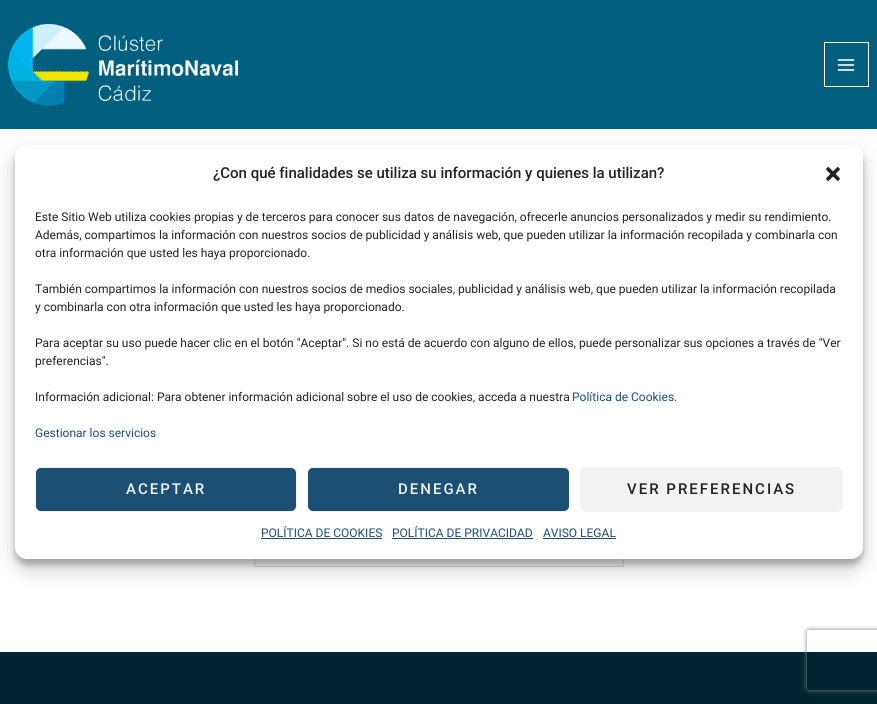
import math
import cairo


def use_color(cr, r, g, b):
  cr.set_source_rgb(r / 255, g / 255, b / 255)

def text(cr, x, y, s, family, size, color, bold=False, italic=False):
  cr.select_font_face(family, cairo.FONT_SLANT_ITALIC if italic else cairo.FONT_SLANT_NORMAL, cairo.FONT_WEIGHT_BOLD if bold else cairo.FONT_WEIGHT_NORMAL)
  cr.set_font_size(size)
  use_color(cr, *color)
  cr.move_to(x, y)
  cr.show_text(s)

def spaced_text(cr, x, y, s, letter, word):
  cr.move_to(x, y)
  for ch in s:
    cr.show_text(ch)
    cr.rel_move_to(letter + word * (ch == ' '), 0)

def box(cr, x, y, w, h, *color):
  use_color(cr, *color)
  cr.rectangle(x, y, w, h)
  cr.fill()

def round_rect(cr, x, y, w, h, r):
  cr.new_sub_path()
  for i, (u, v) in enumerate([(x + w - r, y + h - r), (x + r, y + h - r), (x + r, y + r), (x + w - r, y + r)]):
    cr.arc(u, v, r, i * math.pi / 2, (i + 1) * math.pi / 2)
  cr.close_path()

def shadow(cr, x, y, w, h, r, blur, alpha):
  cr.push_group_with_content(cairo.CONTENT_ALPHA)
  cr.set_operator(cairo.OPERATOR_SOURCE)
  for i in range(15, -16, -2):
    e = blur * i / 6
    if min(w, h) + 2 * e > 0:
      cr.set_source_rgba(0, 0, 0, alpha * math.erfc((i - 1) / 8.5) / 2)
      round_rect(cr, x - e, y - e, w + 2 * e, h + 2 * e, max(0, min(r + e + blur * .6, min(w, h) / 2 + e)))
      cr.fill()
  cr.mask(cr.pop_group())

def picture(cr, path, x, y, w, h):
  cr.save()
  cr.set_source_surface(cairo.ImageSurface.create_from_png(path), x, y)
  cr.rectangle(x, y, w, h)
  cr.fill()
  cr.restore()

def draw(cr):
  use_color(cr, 255, 255, 255)
  cr.paint()
  box(cr, 0, 0, 877, 129, 0, 94, 127)
  picture(cr, "img_01.png", 8, 24, 230, 82)
  cr.rectangle(824.5, 42.5, 44, 44)
  use_color(cr, 255, 255, 255)
  cr.set_line_width(1)
  cr.stroke()
  picture(cr, "img_02.png", 837, 59, 18, 12)
  use_color(cr, 250, 250, 250)
  round_rect(cr, 254.5, 523.5, 369, 43, 1.5)
  cr.fill_preserve()
  use_color(cr, 221, 221, 221)
  cr.stroke()
  box(cr, 0, 652, 877, 52, 0, 36, 50)
  use_color(cr, 0, 0, 0)
  shadow(cr, 15, 151, 848, 414, 12, 3, 0.23)
  shadow(cr, 15, 155, 848, 414, 12, 10, 0.19)
  use_color(cr, 255, 255, 255)
  round_rect(cr, 15, 145, 848, 414, 12)
  cr.fill()
  picture(cr, "img_03.png", 826, 167, 14, 14)
  use_color(cr, 27, 79, 116)
  round_rect(cr, 35.5, 467.5, 261, 44, 5.5)
  cr.fill_preserve()
  use_color(cr, 242, 242, 242)
  cr.stroke()
  use_color(cr, 27, 79, 116)
  round_rect(cr, 307.5, 467.5, 262, 44, 5.5)
  cr.fill_preserve()
  use_color(cr, 242, 242, 242)
  cr.stroke()
  round_rect(cr, 580.5, 467.5, 262, 44, 5.5)
  cr.fill_preserve()
  cr.stroke()
  box(cr, 261, 538, 121, 1, 27, 79, 116)
  box(cr, 392, 538, 141, 1, 27, 79, 116)
  box(cr, 543, 538, 73, 1, 27, 79, 116)
  cr.save()
  cr.set_fill_rule(cairo.FILL_RULE_EVEN_ODD)
  cr.new_path()
  cr.move_to(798, 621)
  cr.line_to(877, 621)
  cr.line_to(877, 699)
  cr.line_to(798, 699)
  cr.close_path()
  cr.move_to(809, 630)
  cr.line_to(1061, 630)
  cr.curve_to(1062, 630, 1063, 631, 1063, 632)
  cr.line_to(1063, 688)
  cr.curve_to(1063, 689, 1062, 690, 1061, 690)
  cr.line_to(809, 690)
  cr.curve_to(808, 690, 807, 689, 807, 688)
  cr.line_to(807, 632)
  cr.curve_to(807, 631, 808, 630, 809, 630)
  cr.close_path()
  cr.clip()
  use_color(cr, 128, 128, 128)
  shadow(cr, 807, 630, 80, 60, 2, 2.5, 1)
  cr.restore()
  text(cr, 213, 178, "¿Con qué finalidades se utiliza su información y quienes la utilizan?", "Roboto Medium", 15, (34, 34, 34))
  text(cr, 35, 221, "Este Sitio Web utiliza cookies propias y de terceros para conocer sus datos de navegación, ofrecerle anuncios personalizados y medir su rendimiento.", "Roboto", 12, (34, 34, 34))
  text(cr, 35, 239, "Además, compartimos la información con nuestros socios de publicidad y análisis web, que pueden utilizar la información recopilada y combinarla con", "Roboto", 12, (34, 34, 34))
  text(cr, 35, 257, "otra información que usted les haya proporcionado.", "Roboto", 12, (34, 34, 34))
  text(cr, 35, 293, "También compartimos la información con nuestros socios de medios sociales, publicidad y análisis web, que pueden utilizar la información recopilada", "Roboto", 12, (34, 34, 34))
  text(cr, 35, 311, "y combinarla con otra información que usted les haya proporcionado.", "Roboto", 12, (34, 34, 34))
  text(cr, 35, 347, "Para aceptar su uso puede hacer clic en el botón \"Aceptar\". Si no está de acuerdo con alguno de ellos, puede personalizar sus opciones a través de \"Ver", "Roboto", 12, (34, 34, 34))
  text(cr, 35, 365, "preferencias\".", "Roboto", 12, (34, 34, 34))
  text(cr, 35, 401, "Información adicional: Para obtener información adicional sobre el uso de cookies, acceda a nuestra", "Roboto", 12, (34, 34, 34))
  text(cr, 572, 401, "Política de Cookies.", "Roboto", 12, (27, 79, 116))
  text(cr, 35, 437, "Gestionar los servicios", "Roboto", 12, (27, 79, 116))
  cr.select_font_face("Roboto Medium")
  cr.set_font_size(15)
  use_color(cr, 242, 242, 242)
  spaced_text(cr, 126, 494, "ACEPTAR", 2, 0)
  spaced_text(cr, 398, 494, "DENEGAR", 2, 0)
  use_color(cr, 34, 34, 34)
  spaced_text(cr, 627, 494, "VER PREFERENCIAS", 2, 0)
  text(cr, 261, 537, "POLÍTICA DE COOKIES", "Roboto", 12, (27, 79, 116))
  text(cr, 392, 537, "POLÍTICA DE PRIVACIDAD", "Roboto", 12, (27, 79, 116))
  text(cr, 543, 537, "AVISO LEGAL", "Roboto", 12, (27, 79, 116))


surface = cairo.ImageSurface(cairo.FORMAT_RGB24, 877, 704)
cr = cairo.Context(surface)
options = cairo.FontOptions()
options.set_hint_metrics(cairo.HINT_METRICS_OFF)
options.set_hint_style(cairo.HINT_STYLE_NONE)
cr.set_font_options(options)
cr.set_miter_limit(4)
draw(cr)
surface.write_to_png("out.png")
